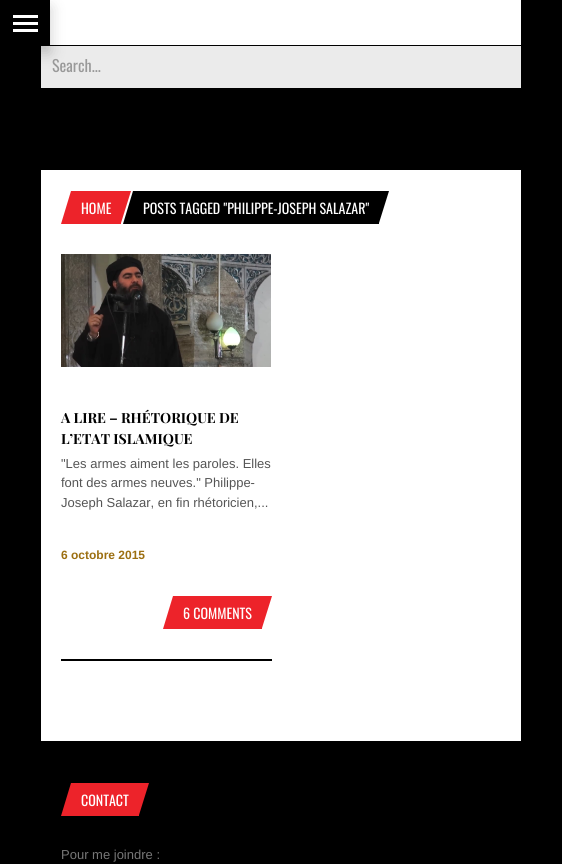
import math
import cairo


def use_color(cr, r, g, b):
  cr.set_source_rgb(r / 255, g / 255, b / 255)

def text(cr, x, y, s, family, size, color, bold=False, italic=False):
  cr.select_font_face(family, cairo.FONT_SLANT_ITALIC if italic else cairo.FONT_SLANT_NORMAL, cairo.FONT_WEIGHT_BOLD if bold else cairo.FONT_WEIGHT_NORMAL)
  cr.set_font_size(size)
  use_color(cr, *color)
  cr.move_to(x, y)
  cr.show_text(s)

def box(cr, x, y, w, h, *color):
  use_color(cr, *color)
  cr.rectangle(x, y, w, h)
  cr.fill()

def round_rect(cr, x, y, w, h, r):
  cr.new_sub_path()
  for i, (u, v) in enumerate([(x + w - r, y + h - r), (x + r, y + h - r), (x + r, y + r), (x + w - r, y + r)]):
    cr.arc(u, v, r, i * math.pi / 2, (i + 1) * math.pi / 2)
  cr.close_path()

def shadow(cr, x, y, w, h, r, blur, alpha):
  cr.push_group_with_content(cairo.CONTENT_ALPHA)
  cr.set_operator(cairo.OPERATOR_SOURCE)
  for i in range(15, -16, -2):
    e = blur * i / 6
    if min(w, h) + 2 * e > 0:
      cr.set_source_rgba(0, 0, 0, alpha * math.erfc((i - 1) / 8.5) / 2)
      round_rect(cr, x - e, y - e, w + 2 * e, h + 2 * e, max(0, min(r + e + blur * .6, min(w, h) / 2 + e)))
      cr.fill()
  cr.mask(cr.pop_group())

def picture(cr, path, x, y, w, h):
  cr.save()
  cr.set_source_surface(cairo.ImageSurface.create_from_png(path), x, y)
  cr.rectangle(x, y, w, h)
  cr.fill()
  cr.restore()

def draw(cr):
  use_color(cr, 0, 0, 0)
  cr.paint()
  box(cr, 41, 0, 480, 741, 255, 255, 255)
  box(cr, 41, 45, 480, 125, 0, 0, 0)
  box(cr, 41, 46, 480, 42, 235, 235, 235)
  use_color(cr, 0, 0, 0)
  shadow(cr, 0, 8, 50, 45, 0, 7.5, 0.2)
  box(cr, 41, 0, 9, 45, 0, 0, 0)
  box(cr, 13, 15, 25, 3, 255, 255, 255)
  box(cr, 13, 22, 25, 3, 255, 255, 255)
  box(cr, 13, 29, 25, 3, 255, 255, 255)
  box(cr, 71, 191, 50, 33, 237, 35, 42)
  cr.new_path()
  cr.move_to(71, 191)
  cr.line_to(71, 224)
  cr.line_to(61, 224)
  cr.close_path()
  cr.fill()
  cr.new_path()
  cr.move_to(121, 223)
  cr.line_to(121, 191)
  cr.line_to(131, 191)
  cr.close_path()
  cr.fill()
  box(cr, 133, 191, 246, 33, 0, 0, 0)
  cr.new_path()
  cr.move_to(133, 191)
  cr.line_to(133, 224)
  cr.line_to(123, 224)
  cr.close_path()
  cr.fill()
  cr.new_path()
  cr.move_to(379, 223)
  cr.line_to(379, 191)
  cr.line_to(389, 191)
  cr.close_path()
  cr.fill()
  box(cr, 61, 659, 211, 2, 0, 0, 0)
  picture(cr, "img_01.png", 61, 254, 210, 113)
  box(cr, 173, 596, 89, 33, 237, 35, 42)
  cr.new_path()
  cr.move_to(173, 596)
  cr.line_to(173, 629)
  cr.line_to(163, 629)
  cr.close_path()
  cr.fill()
  cr.new_path()
  cr.move_to(262, 628)
  cr.line_to(262, 596)
  cr.line_to(272, 596)
  cr.close_path()
  cr.fill()
  box(cr, 71, 783, 68, 33, 237, 35, 42)
  cr.new_path()
  cr.move_to(71, 783)
  cr.line_to(71, 816)
  cr.line_to(61, 816)
  cr.close_path()
  cr.fill()
  cr.new_path()
  cr.move_to(139, 815)
  cr.line_to(139, 783)
  cr.line_to(149, 783)
  cr.close_path()
  cr.fill()
  text(cr, 52, 72, "Search...", "Oswald", 16, (153, 153, 153))
  text(cr, 81, 214, "HOME", "Oswald", 14, (255, 255, 255))
  text(cr, 143, 214, "POSTS TAGGED \"PHILIPPE-JOSEPH SALAZAR\"", "Oswald", 14, (255, 255, 255))
  text(cr, 61, 423, "A LIRE – RHÉTORIQUE DE", "Playfair Display", 14, (0, 0, 0), bold=True)
  text(cr, 61, 444, "L’ETAT ISLAMIQUE", "Playfair Display", 14, (0, 0, 0), bold=True)
  text(cr, 61, 468, "\"Les armes aiment les paroles. Elles", "Liberation Sans", 13, (85, 85, 85))
  text(cr, 61, 487, "font des armes neuves.\" Philippe-", "Liberation Sans", 13, (85, 85, 85))
  text(cr, 61, 507, "Joseph Salazar, en fin rhétoricien,...", "Liberation Sans", 13, (85, 85, 85))
  text(cr, 61, 559, "6 octobre 2015", "Liberation Sans", 12, (156, 111, 17), bold=True)
  text(cr, 183, 619, "6 COMMENTS", "Oswald", 14, (255, 255, 255))
  text(cr, 81, 806, "CONTACT", "Oswald", 14, (255, 255, 255))
  text(cr, 61, 859, "Pour me joindre :", "Liberation Sans", 13, (119, 119, 119))


surface = cairo.ImageSurface(cairo.FORMAT_RGB24, 562, 864)
cr = cairo.Context(surface)
options = cairo.FontOptions()
options.set_hint_metrics(cairo.HINT_METRICS_OFF)
options.set_hint_style(cairo.HINT_STYLE_NONE)
cr.set_font_options(options)
cr.set_miter_limit(4)
draw(cr)
surface.write_to_png("out.png")
